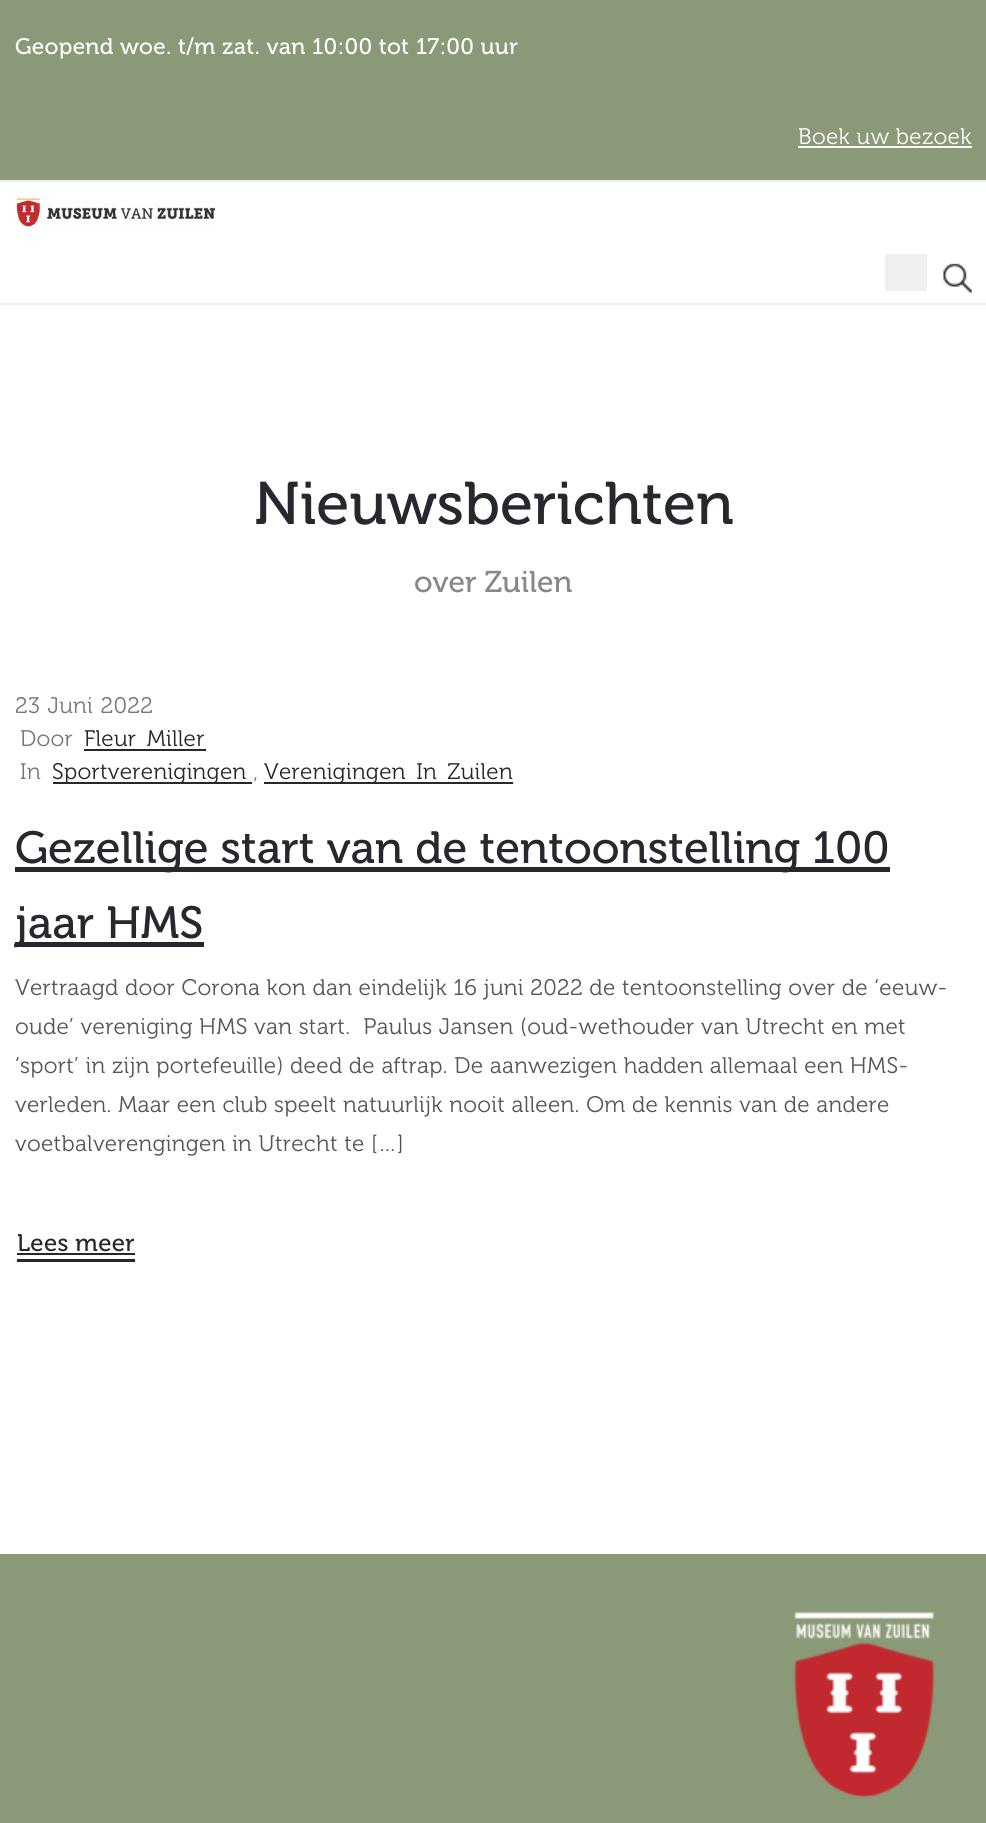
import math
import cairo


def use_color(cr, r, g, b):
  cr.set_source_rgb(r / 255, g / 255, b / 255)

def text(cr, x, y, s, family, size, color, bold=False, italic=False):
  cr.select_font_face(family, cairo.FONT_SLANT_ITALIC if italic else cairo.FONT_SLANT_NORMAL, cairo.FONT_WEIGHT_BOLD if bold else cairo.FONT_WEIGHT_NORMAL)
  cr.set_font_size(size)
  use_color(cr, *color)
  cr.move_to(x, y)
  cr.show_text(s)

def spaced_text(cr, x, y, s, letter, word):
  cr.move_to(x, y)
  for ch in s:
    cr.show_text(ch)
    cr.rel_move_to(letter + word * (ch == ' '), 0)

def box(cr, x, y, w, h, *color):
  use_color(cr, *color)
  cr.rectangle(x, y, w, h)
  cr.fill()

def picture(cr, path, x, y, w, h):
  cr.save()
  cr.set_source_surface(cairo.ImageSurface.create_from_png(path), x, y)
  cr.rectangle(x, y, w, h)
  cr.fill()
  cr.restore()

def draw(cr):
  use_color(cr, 255, 255, 255)
  cr.paint()
  box(cr, 0, 0, 986, 180, 138, 153, 119)
  box(cr, 0, 180, 986, 2, 238, 238, 238)
  box(cr, 798, 146, 174, 2, 255, 255, 255)
  box(cr, 0, 303, 986, 2, 238, 238, 238)
  picture(cr, "img_01.png", 16, 198, 200, 29)
  box(cr, 885, 254, 42, 37, 239, 239, 239)
  picture(cr, "img_02.png", 943, 263, 29, 30)
  box(cr, 84, 749, 122, 2, 37, 40, 46)
  box(cr, 53, 782, 199, 2, 37, 40, 46)
  box(cr, 264, 782, 249, 2, 37, 40, 46)
  box(cr, 15, 867, 875, 5, 37, 40, 46)
  box(cr, 15, 942, 189, 5, 37, 40, 46)
  use_color(cr, 232, 232, 232)
  cr.new_path()
  cr.move_to(136, 1262)
  cr.line_to(15, 1262)
  cr.line_to(16, 1260)
  cr.line_to(135, 1260)
  cr.close_path()
  cr.fill()
  box(cr, 17, 1253, 118, 2, 37, 40, 46)
  box(cr, 17, 1259, 118, 3, 37, 40, 46)
  box(cr, 0, 1554, 986, 269, 138, 153, 119)
  picture(cr, "img_03.png", 794, 1611, 141, 187)
  cr.select_font_face("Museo")
  cr.set_font_size(22.5)
  use_color(cr, 255, 255, 255)
  spaced_text(cr, 15, 54, "Geopend woe. t/m zat. van 10:00 tot 17:00 uur", 0.3, 0)
  cr.select_font_face("Museo Light")
  spaced_text(cr, 798, 144, "Boek uw bezoek", 0.3, 0)
  text(cr, 254, 524, "Nieuwsberichten", "Museo", 60, (37, 40, 46))
  text(cr, 414, 592, "over Zuilen", "Museo", 30, (136, 136, 136))
  cr.select_font_face("Museo Light")
  cr.set_font_size(22.5)
  use_color(cr, 119, 119, 119)
  spaced_text(cr, 15, 713, "23 Juni 2022", 0.3, 1)
  spaced_text(cr, 20, 746, "Door", 0.3, 0)
  use_color(cr, 37, 40, 46)
  spaced_text(cr, 84, 746, "Fleur Miller", 0.3, 4)
  use_color(cr, 119, 119, 119)
  spaced_text(cr, 20, 779, "In", 0.3, 0)
  use_color(cr, 37, 40, 46)
  spaced_text(cr, 52, 779, "Sportverenigingen", 0.3, 0)
  use_color(cr, 119, 119, 119)
  spaced_text(cr, 253, 779, "‚", 0.3, 0)
  use_color(cr, 37, 40, 46)
  spaced_text(cr, 264, 779, "Verenigingen In Zuilen", 0.3, 4)
  text(cr, 15, 863, "Gezellige start van de tentoonstelling 100", "Museo", 45, (37, 40, 46))
  text(cr, 15, 938, "jaar HMS", "Museo", 45, (37, 40, 46))
  cr.select_font_face("Museo Light")
  cr.set_font_size(22.5)
  use_color(cr, 85, 85, 85)
  spaced_text(cr, 15, 995, "Vertraagd door Corona kon dan eindelijk 16 juni 2022 de tentoonstelling over de ‘eeuw-", 0.3, 0)
  spaced_text(cr, 15, 1034, "oude’ vereniging HMS van start.  Paulus Jansen (oud-wethouder van Utrecht en met", 0.3, 0)
  spaced_text(cr, 15, 1073, "‘sport’ in zijn portefeuille) deed de aftrap. De aanwezigen hadden allemaal een HMS-", 0.3, 0)
  spaced_text(cr, 15, 1112, "verleden. Maar een club speelt natuurlijk nooit alleen. Om de kennis van de andere", 0.3, 0)
  spaced_text(cr, 15, 1151, "voetbalverengingen in Utrecht te […]", 0.3, 0)
  cr.select_font_face("Museo")
  cr.set_font_size(24)
  use_color(cr, 37, 40, 46)
  spaced_text(cr, 17, 1251, "Lees meer", 0.3, 0)


surface = cairo.ImageSurface(cairo.FORMAT_RGB24, 986, 1823)
cr = cairo.Context(surface)
options = cairo.FontOptions()
options.set_hint_metrics(cairo.HINT_METRICS_OFF)
options.set_hint_style(cairo.HINT_STYLE_NONE)
cr.set_font_options(options)
cr.set_miter_limit(4)
draw(cr)
surface.write_to_png("out.png")
